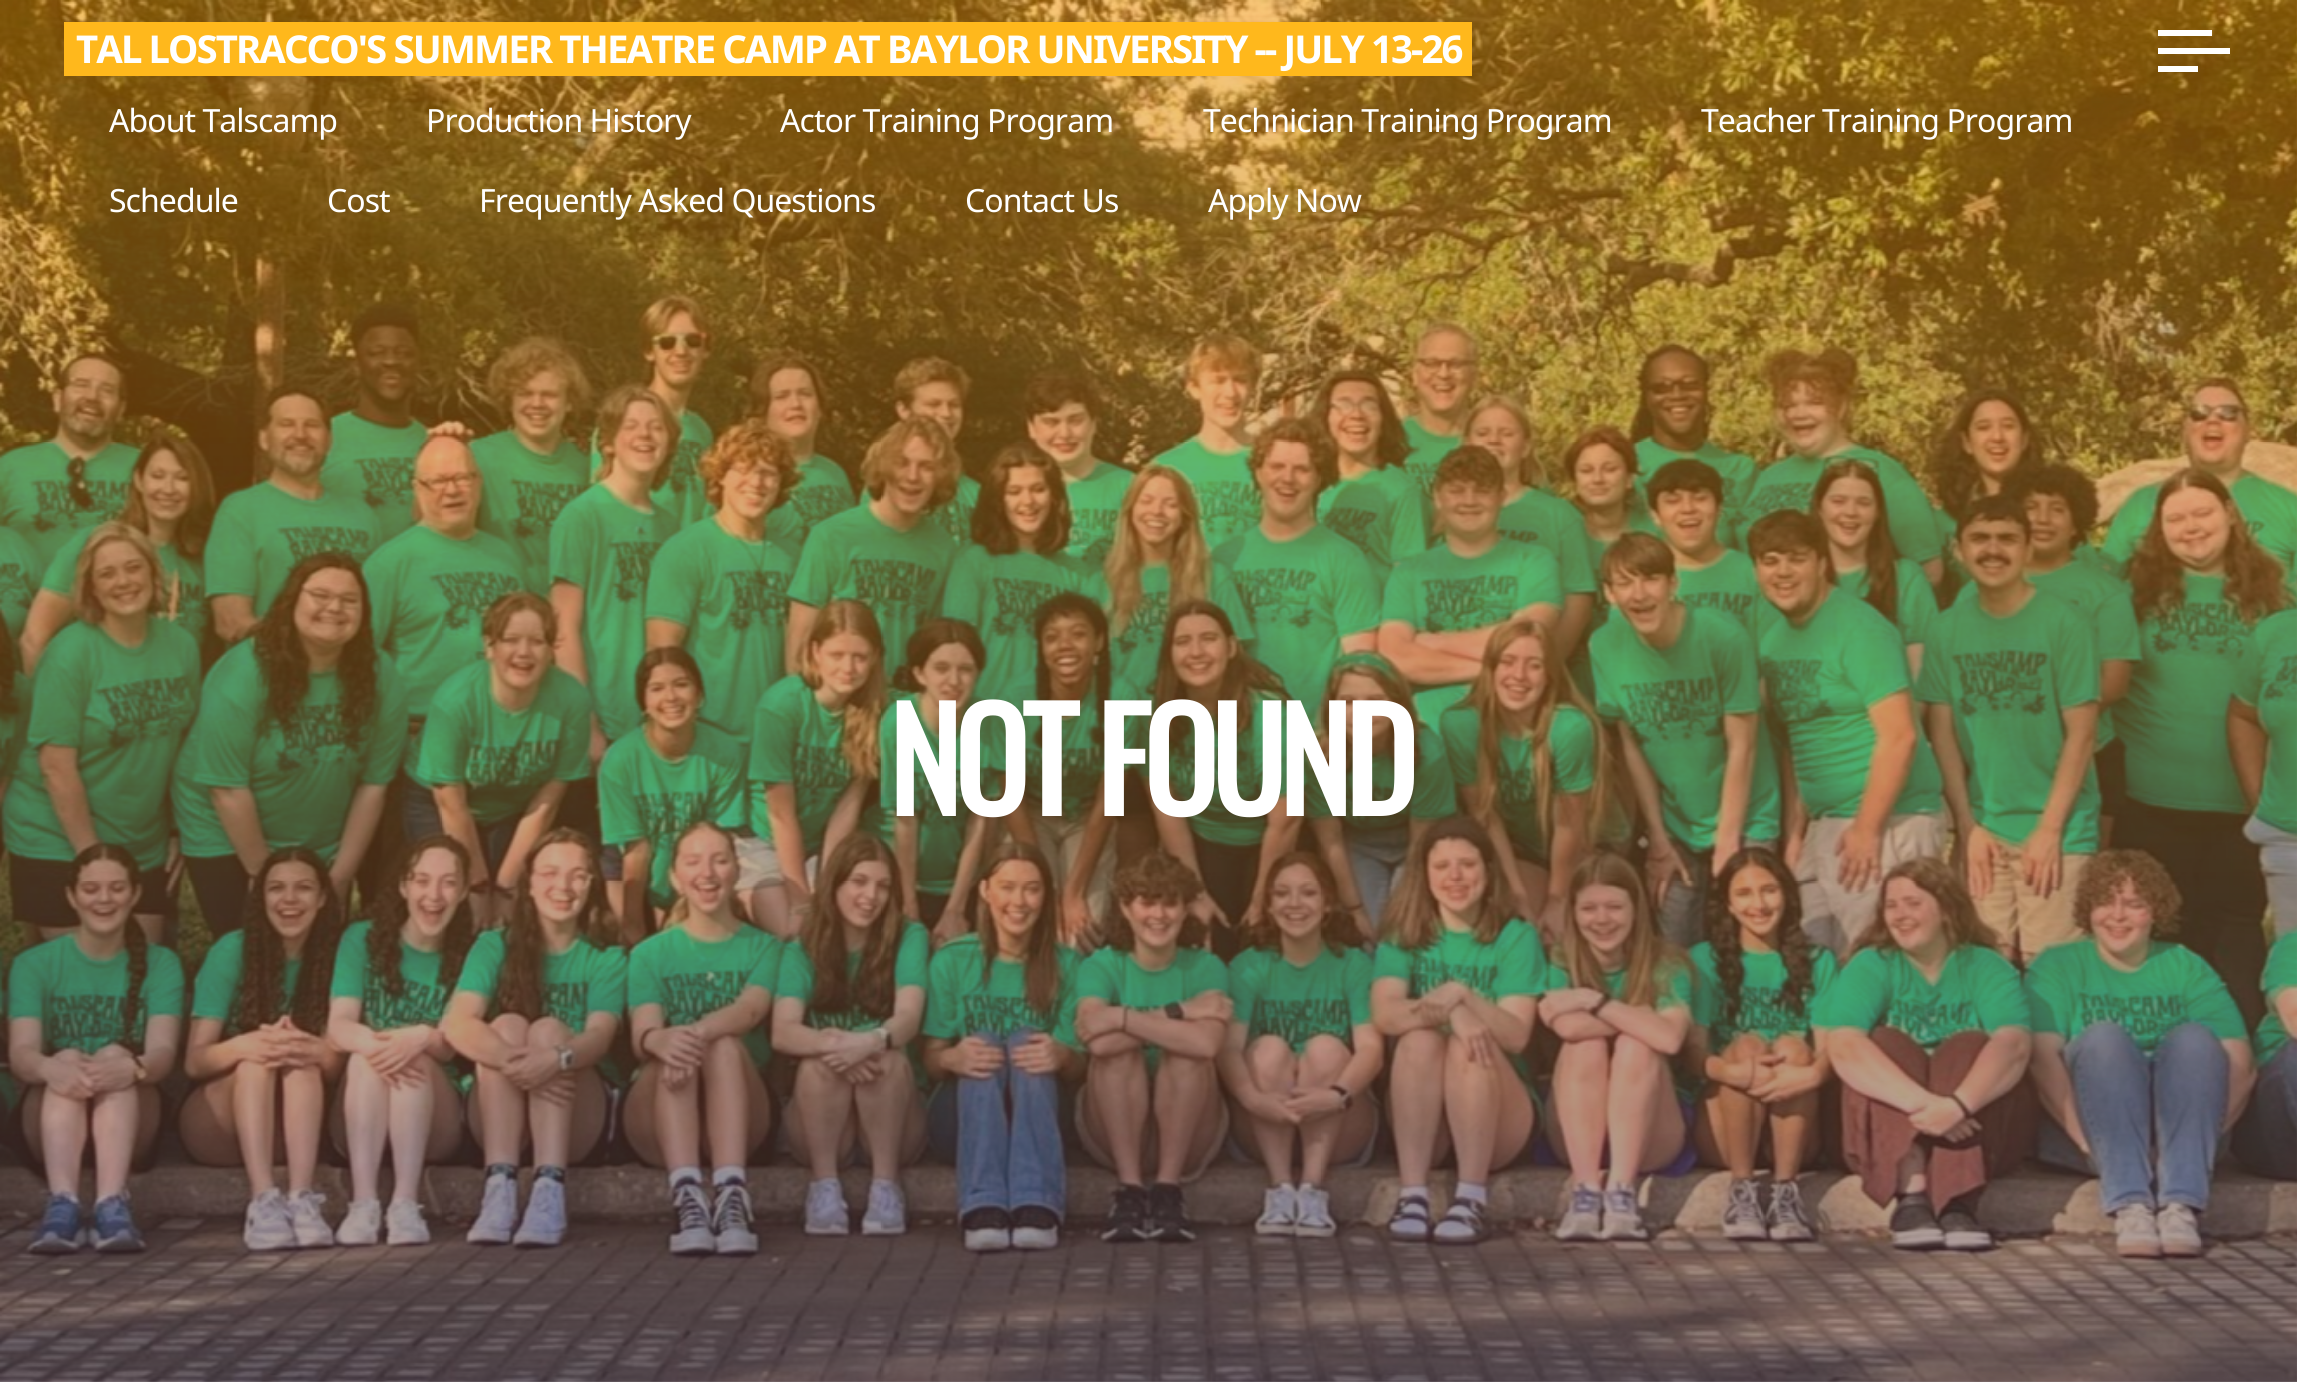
import math
import cairo


def use_color(cr, r, g, b):
  cr.set_source_rgb(r / 255, g / 255, b / 255)

def spaced_text(cr, x, y, s, letter, word):
  cr.move_to(x, y)
  for ch in s:
    cr.show_text(ch)
    cr.rel_move_to(letter + word * (ch == ' '), 0)

def box(cr, x, y, w, h, *color):
  use_color(cr, *color)
  cr.rectangle(x, y, w, h)
  cr.fill()

def picture(cr, path, x, y, w, h):
  cr.save()
  cr.set_source_surface(cairo.ImageSurface.create_from_png(path), x, y)
  cr.rectangle(x, y, w, h)
  cr.fill()
  cr.restore()

def draw(cr):
  use_color(cr, 255, 255, 255)
  cr.paint()
  picture(cr, "img_01.png", 0, 0, 2297, 1382)
  gradient = cairo.LinearGradient(1149, 0, 1149, 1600)
  gradient.add_color_stop_rgba(0, 0.945, 0.561, 0.004, 0.5)
  gradient.add_color_stop_rgba(1, 0.2, 0.129, 0.259, 0.5)
  cr.set_source(gradient)
  cr.new_path()
  cr.move_to(0, 0)
  cr.line_to(0, 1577)
  cr.line_to(1103, 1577)
  cr.line_to(1149, 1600)
  cr.line_to(1195, 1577)
  cr.line_to(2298, 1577)
  cr.line_to(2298, 0)
  cr.close_path()
  cr.fill()
  box(cr, 64, 22, 1408, 54, 255, 184, 28)
  box(cr, 2158, 30, 54, 6, 255, 255, 255)
  box(cr, 2158, 48, 72, 6, 255, 255, 255)
  box(cr, 2158, 66, 40, 6, 255, 255, 255)
  cr.select_font_face("Noto Sans", cairo.FONT_SLANT_NORMAL, cairo.FONT_WEIGHT_BOLD)
  cr.set_font_size(38.4)
  spaced_text(cr, 76, 63, "TAL LOSTRACCO'S SUMMER THEATRE CAMP AT BAYLOR UNIVERSITY -- JULY 13-26", -1.92, 0)
  cr.select_font_face("Noto Sans")
  cr.set_font_size(32)
  spaced_text(cr, 109, 132, "About Talscamp", -0.95, 0)
  spaced_text(cr, 426, 132, "Production History", -0.95, 0)
  spaced_text(cr, 780, 132, "Actor Training Program", -0.95, 0)
  spaced_text(cr, 1203, 132, "Technician Training Program", -0.95, 0)
  spaced_text(cr, 1701, 132, "Teacher Training Program", -0.95, 0)
  spaced_text(cr, 109, 212, "Schedule", -0.95, 0)
  spaced_text(cr, 327, 212, "Cost", -0.95, 0)
  spaced_text(cr, 479, 212, "Frequently Asked Questions", -0.95, 0)
  spaced_text(cr, 965, 212, "Contact Us", -0.95, 0)
  spaced_text(cr, 1208, 212, "Apply Now", -0.95, 0)
  cr.select_font_face("Oswald", cairo.FONT_SLANT_NORMAL, cairo.FONT_WEIGHT_BOLD)
  cr.set_font_size(138)
  spaced_text(cr, 888, 816, "NOT FOUND", -7, 0)


surface = cairo.ImageSurface(cairo.FORMAT_RGB24, 2297, 1382)
cr = cairo.Context(surface)
options = cairo.FontOptions()
options.set_hint_metrics(cairo.HINT_METRICS_OFF)
options.set_hint_style(cairo.HINT_STYLE_NONE)
cr.set_font_options(options)
cr.set_miter_limit(4)
draw(cr)
surface.write_to_png("out.png")
